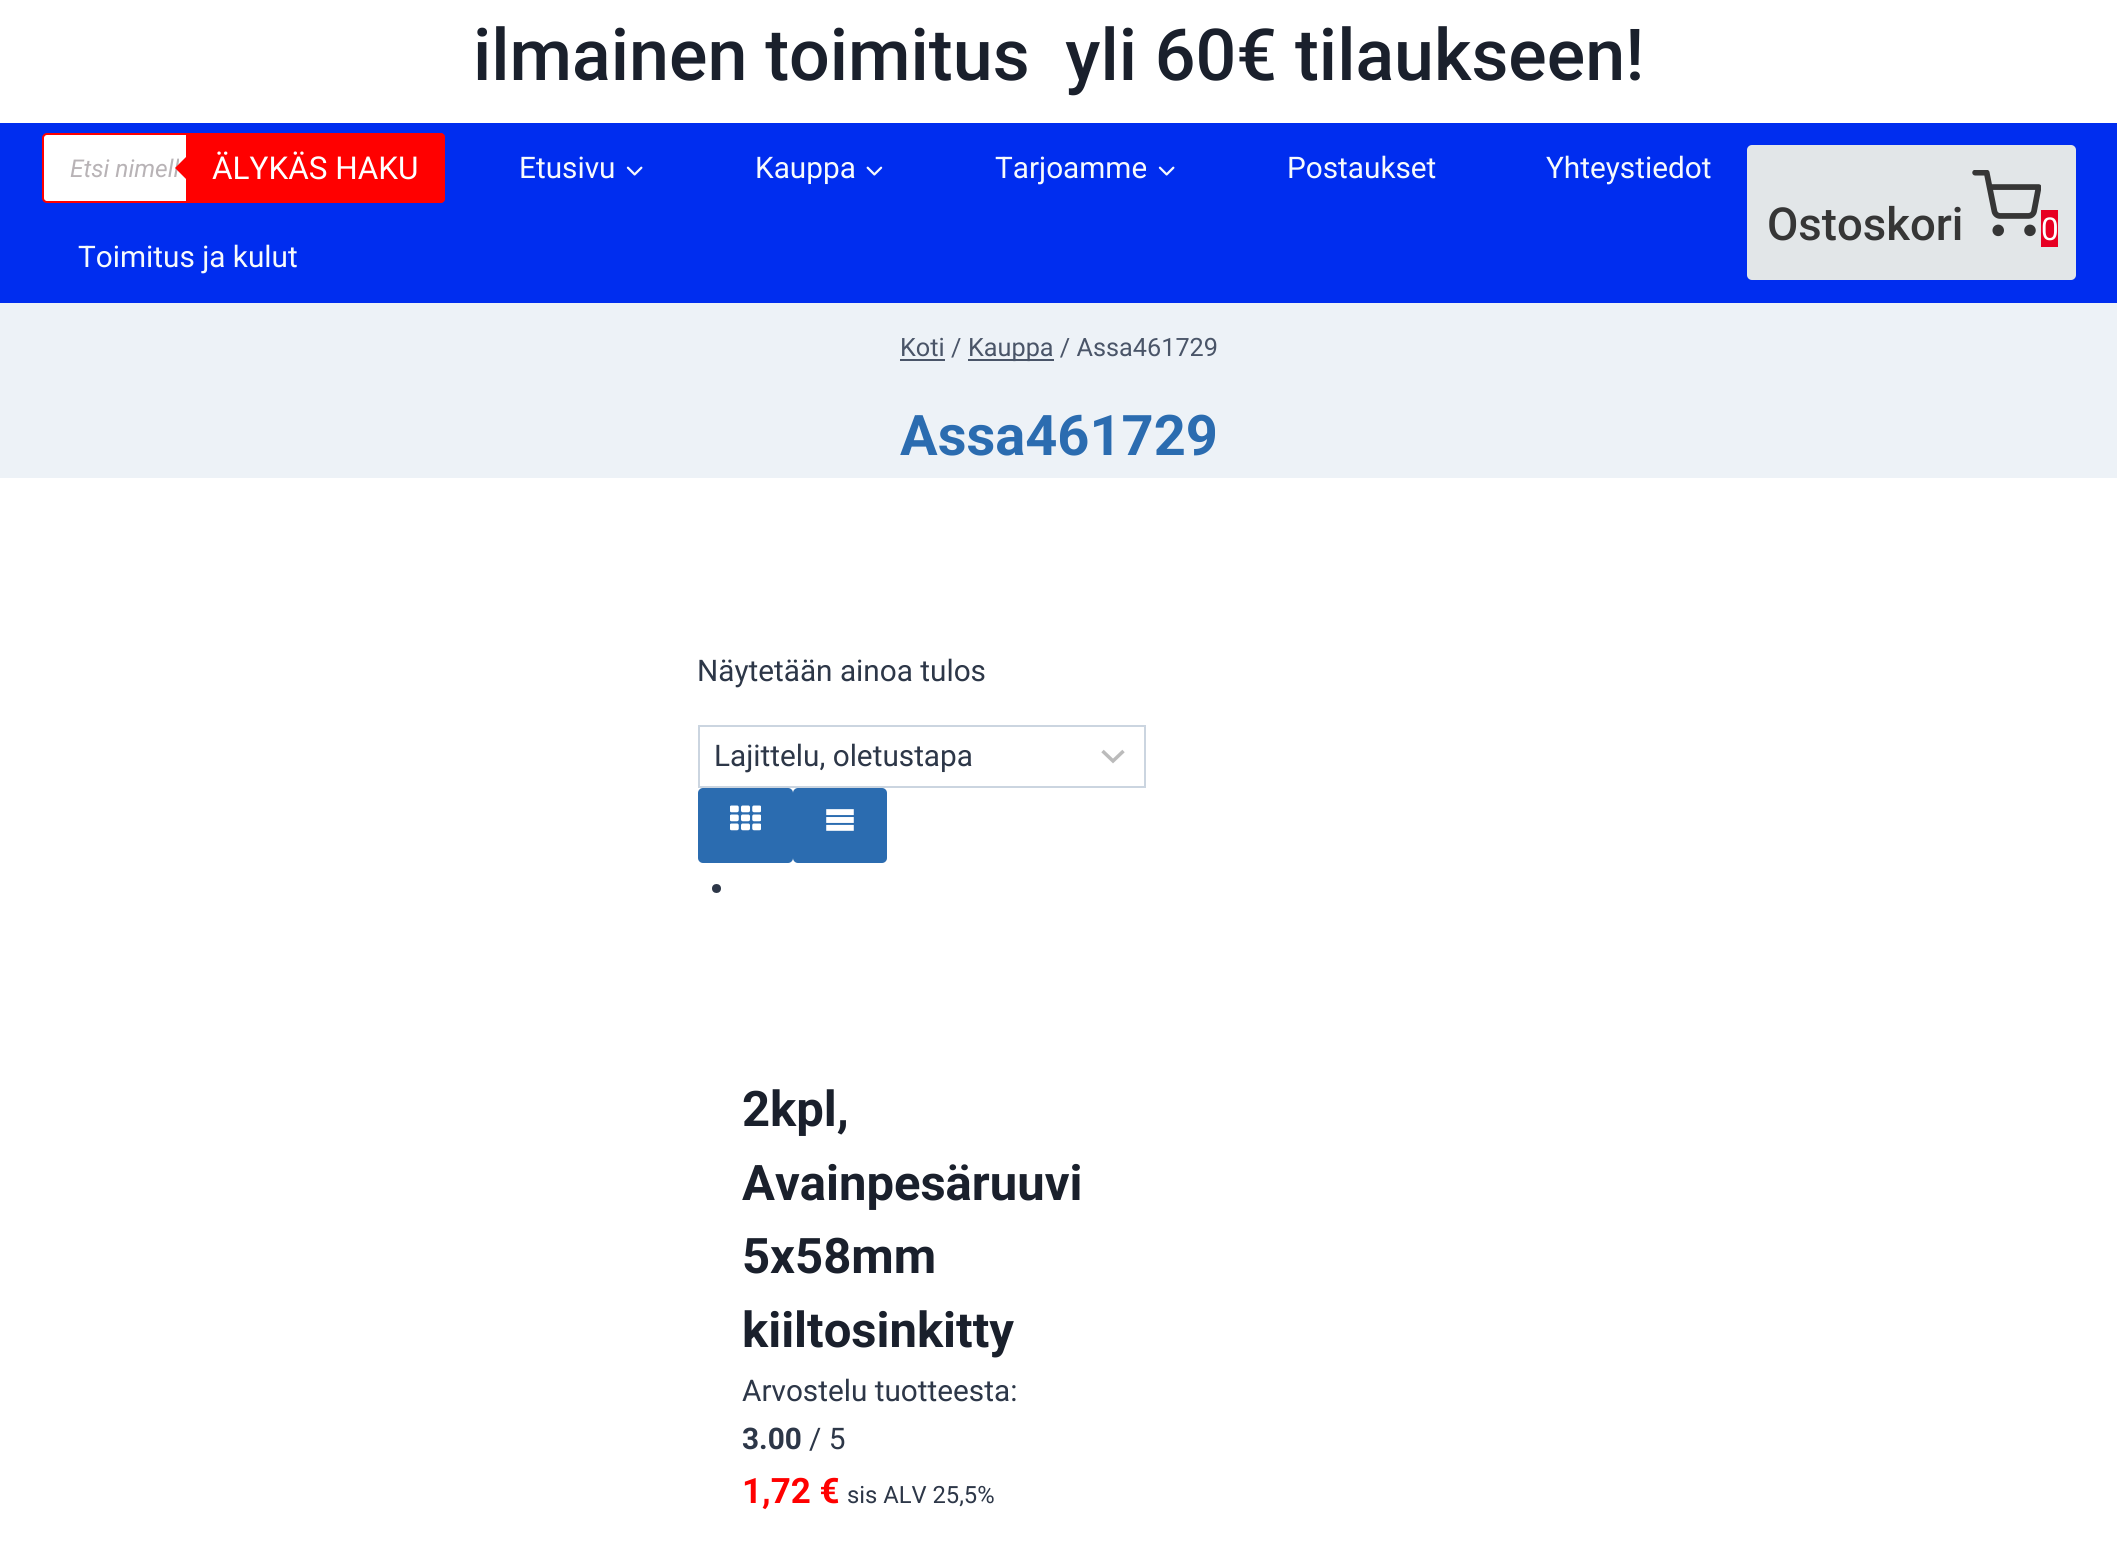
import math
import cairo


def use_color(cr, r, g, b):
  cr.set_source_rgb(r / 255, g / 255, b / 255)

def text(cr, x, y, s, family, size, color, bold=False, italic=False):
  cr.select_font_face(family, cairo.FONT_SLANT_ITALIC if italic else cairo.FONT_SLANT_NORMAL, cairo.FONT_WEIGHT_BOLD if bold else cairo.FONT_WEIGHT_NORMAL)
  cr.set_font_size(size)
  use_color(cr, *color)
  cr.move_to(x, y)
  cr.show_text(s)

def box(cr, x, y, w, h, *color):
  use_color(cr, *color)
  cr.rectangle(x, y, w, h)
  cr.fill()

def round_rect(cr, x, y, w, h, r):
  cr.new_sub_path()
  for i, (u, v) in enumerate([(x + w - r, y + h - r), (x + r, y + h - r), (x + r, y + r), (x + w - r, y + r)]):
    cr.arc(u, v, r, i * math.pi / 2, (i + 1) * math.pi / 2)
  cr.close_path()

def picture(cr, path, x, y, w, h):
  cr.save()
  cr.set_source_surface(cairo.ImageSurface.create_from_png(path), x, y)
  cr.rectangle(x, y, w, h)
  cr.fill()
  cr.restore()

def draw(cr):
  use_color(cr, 255, 255, 255)
  cr.paint()
  box(cr, 0, 123, 2117, 180, 0, 45, 239)
  use_color(cr, 255, 255, 255)
  round_rect(cr, 43, 134, 401, 68, 4)
  cr.fill_preserve()
  use_color(cr, 255, 0, 0)
  cr.stroke()
  cr.new_path()
  cr.move_to(186, 133)
  cr.line_to(441, 133)
  cr.curve_to(443, 133, 445, 135, 445, 137)
  cr.line_to(445, 199)
  cr.curve_to(445, 201, 443, 203, 441, 203)
  cr.line_to(186, 203)
  cr.close_path()
  cr.fill()
  picture(cr, "img_01.png", 626, 166, 17, 10)
  picture(cr, "img_02.png", 866, 166, 17, 10)
  picture(cr, "img_01.png", 1158, 166, 17, 10)
  use_color(cr, 226, 230, 232)
  round_rect(cr, 1747, 145, 329, 135, 5)
  cr.fill()
  picture(cr, "img_03.png", 1972, 170, 69, 67)
  box(cr, 2041, 210, 17, 37, 231, 0, 35)
  box(cr, 0, 303, 2117, 175, 237, 242, 247)
  box(cr, 900, 359, 45, 2, 74, 85, 104)
  box(cr, 968, 359, 86, 2, 74, 85, 104)
  cr.new_path()
  cr.move_to(1102.5, 751)
  cr.line_to(1113, 761)
  cr.line_to(1123.5, 751)
  use_color(cr, 187, 187, 187)
  cr.set_line_width(3.5)
  cr.stroke()
  cr.rectangle(699, 726, 446, 61)
  use_color(cr, 203, 213, 224)
  cr.set_line_width(2)
  cr.stroke()
  use_color(cr, 43, 108, 176)
  round_rect(cr, 698, 788, 95, 75, 5)
  cr.fill()
  picture(cr, "img_04.png", 730, 805, 31, 26)
  round_rect(cr, 793, 788, 94, 75, 5)
  cr.fill()
  picture(cr, "img_05.png", 826, 809, 28, 22)
  use_color(cr, 45, 55, 72)
  cr.arc(716.5, 888.5, 4.5, 0, 2 * math.pi)
  cr.fill()
  text(cr, 473, 80, "ilmainen toimitus  yli 60€ tilaukseen!", "Roboto Medium", 71.75, (26, 32, 44))
  text(cr, 70, 177, "Etsi nimell", "Roboto", 24.5, (184, 179, 182), italic=True)
  use_color(cr, 255, 0, 0)
  cr.new_path()
  cr.move_to(189, 154)
  cr.line_to(189, 182)
  cr.line_to(175, 168)
  cr.close_path()
  cr.fill()
  text(cr, 212, 179, "ÄLYKÄS HAKU", "Roboto", 31.5, (255, 255, 255))
  text(cr, 519, 178, "Etusivu", "Roboto", 29.75, (247, 250, 252))
  text(cr, 755, 178, "Kauppa", "Roboto", 29.75, (247, 250, 252))
  text(cr, 995, 178, "Tarjoamme", "Roboto", 29.75, (247, 250, 252))
  text(cr, 1287, 178, "Postaukset", "Roboto", 29.75, (247, 250, 252))
  text(cr, 1546, 178, "Yhteystiedot", "Roboto", 29.75, (247, 250, 252))
  text(cr, 78, 267, "Toimitus ja kulut", "Roboto", 29.75, (247, 250, 252))
  text(cr, 1767, 240, "Ostoskori", "Roboto Medium", 45.5, (54, 54, 54))
  text(cr, 2041, 240, "0", "Roboto", 31.5, (255, 255, 255))
  text(cr, 900, 356, "Koti /", "Roboto", 25.25, (74, 85, 104))
  text(cr, 968, 356, "Kauppa / Assa461729", "Roboto", 25.25, (74, 85, 104))
  text(cr, 900, 455, "Assa461729", "Roboto", 56, (43, 108, 176), bold=True)
  text(cr, 697, 681, "Näytetään ainoa tulos", "Roboto", 29.75, (45, 55, 72))
  text(cr, 714, 766, "Lajittelu, oletustapa", "Roboto", 29.75, (45, 55, 72))
  text(cr, 742, 1126, "2kpl,", "Roboto", 49, (26, 32, 44), bold=True)
  text(cr, 742, 1200, "Avainpesäruuvi", "Roboto", 49, (26, 32, 44), bold=True)
  text(cr, 742, 1273, "5x58mm", "Roboto", 49, (26, 32, 44), bold=True)
  text(cr, 742, 1347, "kiiltosinkitty", "Roboto", 49, (26, 32, 44), bold=True)
  text(cr, 742, 1401, "Arvostelu tuotteesta:", "Roboto", 29.75, (45, 55, 72))
  text(cr, 742, 1449, "3.00", "Roboto", 29.75, (45, 55, 72), bold=True)
  text(cr, 809, 1449, "/ 5", "Roboto", 29.75, (45, 55, 72))
  text(cr, 742, 1503, "1,72 €", "Roboto", 35, (255, 0, 0), bold=True)
  text(cr, 847, 1503, "sis ALV 25,5%", "Roboto", 23.75, (45, 55, 72))


surface = cairo.ImageSurface(cairo.FORMAT_RGB24, 2117, 1555)
cr = cairo.Context(surface)
options = cairo.FontOptions()
options.set_hint_metrics(cairo.HINT_METRICS_OFF)
options.set_hint_style(cairo.HINT_STYLE_NONE)
cr.set_font_options(options)
cr.set_miter_limit(4)
draw(cr)
surface.write_to_png("out.png")
